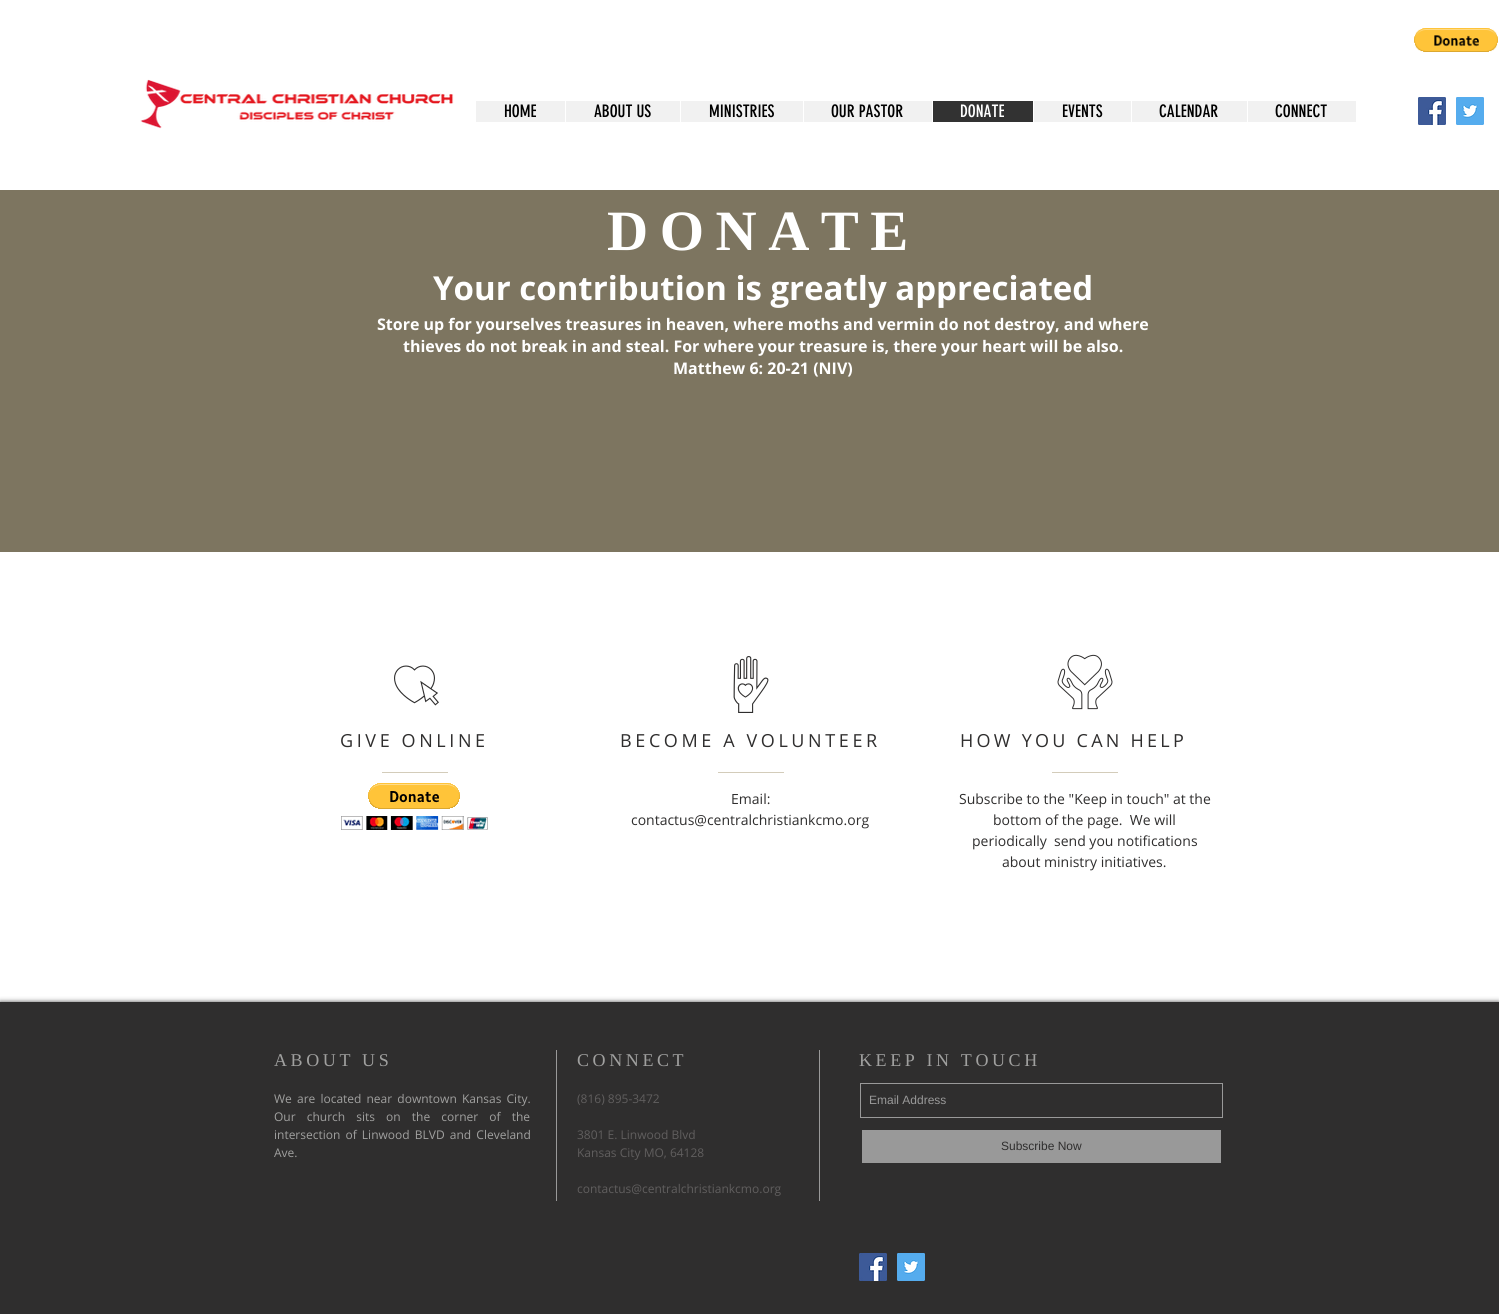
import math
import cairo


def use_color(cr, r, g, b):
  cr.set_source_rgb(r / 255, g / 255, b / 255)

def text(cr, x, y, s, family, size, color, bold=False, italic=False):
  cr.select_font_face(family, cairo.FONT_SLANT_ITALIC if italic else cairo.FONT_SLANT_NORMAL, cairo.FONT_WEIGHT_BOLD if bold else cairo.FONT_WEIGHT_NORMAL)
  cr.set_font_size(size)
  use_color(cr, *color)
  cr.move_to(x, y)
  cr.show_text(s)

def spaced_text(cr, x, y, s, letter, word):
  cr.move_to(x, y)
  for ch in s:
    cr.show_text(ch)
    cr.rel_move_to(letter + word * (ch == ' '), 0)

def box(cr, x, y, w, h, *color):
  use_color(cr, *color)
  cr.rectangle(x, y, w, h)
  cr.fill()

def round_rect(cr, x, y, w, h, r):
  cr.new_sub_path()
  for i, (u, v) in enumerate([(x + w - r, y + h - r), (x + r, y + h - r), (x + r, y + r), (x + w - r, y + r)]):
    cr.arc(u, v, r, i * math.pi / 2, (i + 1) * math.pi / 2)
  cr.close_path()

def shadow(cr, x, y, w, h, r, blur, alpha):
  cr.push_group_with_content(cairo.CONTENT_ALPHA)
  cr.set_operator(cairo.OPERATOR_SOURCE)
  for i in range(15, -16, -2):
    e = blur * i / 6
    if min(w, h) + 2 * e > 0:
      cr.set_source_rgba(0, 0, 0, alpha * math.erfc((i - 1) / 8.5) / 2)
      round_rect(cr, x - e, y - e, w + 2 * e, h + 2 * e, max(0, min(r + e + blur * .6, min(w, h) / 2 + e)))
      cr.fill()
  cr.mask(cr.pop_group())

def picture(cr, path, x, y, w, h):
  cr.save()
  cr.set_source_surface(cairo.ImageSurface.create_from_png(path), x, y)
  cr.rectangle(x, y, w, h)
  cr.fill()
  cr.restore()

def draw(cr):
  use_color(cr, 255, 255, 255)
  cr.paint()
  picture(cr, "img_01.png", 1414, 28, 84, 24)
  picture(cr, "img_02.png", 140, 79, 314, 50)
  box(cr, 476, 101, 880, 21, 241, 241, 241)
  box(cr, 565, 101, 1, 21, 255, 255, 255)
  box(cr, 680, 101, 1, 21, 255, 255, 255)
  box(cr, 803, 101, 1, 21, 255, 255, 255)
  box(cr, 933, 101, 100, 21, 50, 50, 50)
  box(cr, 932, 101, 1, 21, 255, 255, 255)
  box(cr, 1033, 101, 1, 21, 255, 255, 255)
  box(cr, 1131, 101, 1, 21, 255, 255, 255)
  box(cr, 1247, 101, 1, 21, 255, 255, 255)
  picture(cr, "img_03.png", 1418, 97, 28, 28)
  picture(cr, "img_04.png", 1456, 97, 28, 28)
  box(cr, 0, 190, 1499, 362, 125, 117, 96)
  picture(cr, "img_05.png", 394, 665, 45, 41)
  picture(cr, "img_06.png", 733, 656, 36, 57)
  picture(cr, "img_07.png", 1057, 654, 56, 56)
  box(cr, 382, 772, 66, 1, 211, 204, 186)
  box(cr, 718, 772, 66, 1, 211, 204, 186)
  box(cr, 1052, 772, 66, 1, 211, 204, 186)
  picture(cr, "img_08.png", 341, 783, 147, 47)
  use_color(cr, 0, 0, 0)
  shadow(cr, 0, 1002, 1499, 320, 0, 2.5, 0.7)
  box(cr, 0, 1002, 1499, 312, 47, 46, 46)
  box(cr, 556, 1050, 1, 151, 153, 153, 153)
  box(cr, 819, 1050, 1, 151, 153, 153, 153)
  cr.rectangle(860.5, 1083.5, 362, 34)
  cr.set_line_width(1)
  cr.stroke()
  box(cr, 862, 1130, 359, 33, 153, 153, 153)
  picture(cr, "img_09.png", 859, 1253, 28, 28)
  picture(cr, "img_10.png", 897, 1253, 28, 28)
  text(cr, 504, 117, "HOME", "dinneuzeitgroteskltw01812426", 17, (0, 0, 0))
  text(cr, 594, 117, "ABOUT US", "dinneuzeitgroteskltw01812426", 17, (0, 0, 0))
  text(cr, 709, 117, "MINISTRIES", "dinneuzeitgroteskltw01812426", 17, (0, 0, 0))
  text(cr, 831, 117, "OUR PASTOR", "dinneuzeitgroteskltw01812426", 17, (0, 0, 0))
  text(cr, 960, 117, "DONATE", "dinneuzeitgroteskltw01812426", 17, (255, 255, 255))
  text(cr, 1062, 117, "EVENTS", "dinneuzeitgroteskltw01812426", 17, (0, 0, 0))
  text(cr, 1159, 117, "CALENDAR", "dinneuzeitgroteskltw01812426", 17, (0, 0, 0))
  text(cr, 1275, 117, "CONNECT", "dinneuzeitgroteskltw01812426", 17, (0, 0, 0))
  cr.select_font_face("Liberation Serif", cairo.FONT_SLANT_NORMAL, cairo.FONT_WEIGHT_BOLD)
  cr.set_font_size(57)
  use_color(cr, 255, 255, 255)
  spaced_text(cr, 607, 250, "DONATE", 11.5, 0)
  text(cr, 433, 300, "Your contribution is greatly appreciated", "Open Sans", 33, (255, 255, 255), bold=True)
  text(cr, 377, 330, "Store up for yourselves treasures in heaven, where moths and vermin do not destroy, and where", "Open Sans", 16, (255, 255, 255), bold=True)
  text(cr, 403, 352, "thieves do not break in and steal. For where your treasure is, there your heart will be also.", "Open Sans", 16, (255, 255, 255), bold=True)
  text(cr, 673, 374, "Matthew 6: 20-21 (NIV)", "Open Sans", 16, (255, 255, 255), bold=True)
  cr.select_font_face("Open Sans")
  cr.set_font_size(18)
  use_color(cr, 47, 46, 46)
  spaced_text(cr, 340, 747, "GIVE ONLINE", 3.6, 0)
  spaced_text(cr, 620, 747, "BECOME A VOLUNTEER", 3.6, 0)
  spaced_text(cr, 960, 747, "HOW YOU CAN HELP", 3.25, 0)
  text(cr, 731, 804, "Email:", "Open Sans", 14, (47, 46, 46))
  text(cr, 631, 825, "contactus@centralchristiankcmo.org", "Open Sans", 14, (47, 46, 46))
  text(cr, 959, 804, "Subscribe to the \"Keep in touch\" at the", "Open Sans", 14, (47, 46, 46))
  text(cr, 993, 825, "bottom of the page.  We will", "Open Sans", 14, (47, 46, 46))
  text(cr, 972, 846, "periodically", "Open Sans", 14, (47, 46, 46))
  text(cr, 1054, 846, "send you notifications", "Open Sans", 14, (47, 46, 46))
  text(cr, 1002, 867, "about ministry initiatives.", "Open Sans", 14, (47, 46, 46))
  cr.select_font_face("Liberation Serif")
  cr.set_font_size(18)
  use_color(cr, 160, 160, 159)
  spaced_text(cr, 274, 1066, "ABOUT US", 3.6, 0)
  spaced_text(cr, 577, 1066, "CONNECT", 3.6, 0)
  spaced_text(cr, 859, 1066, "KEEP IN TOUCH", 3.6, 0)
  cr.select_font_face("Open Sans")
  cr.set_font_size(12)
  spaced_text(cr, 274, 1103, "We are located near downtown Kansas City.", 0, 2)
  spaced_text(cr, 274, 1121, "Our church sits on the corner of the", 0, 8)
  spaced_text(cr, 274, 1139, "intersection of Linwood BLVD and Cleveland", 0, 2)
  text(cr, 274, 1157, "Ave.", "Open Sans", 12, (160, 160, 159))
  text(cr, 577, 1103, "(816) 895-3472", "Open Sans", 12, (96, 94, 94))
  text(cr, 577, 1139, "3801 E. Linwood Blvd", "Open Sans", 12, (96, 94, 94))
  text(cr, 577, 1157, "Kansas City MO, 64128", "Open Sans", 12, (96, 94, 94))
  text(cr, 577, 1193, "contactus@centralchristiankcmo.org", "Open Sans", 12, (96, 94, 94))
  text(cr, 869, 1104, "Email Address", "Liberation Sans", 12, (153, 153, 153))
  text(cr, 1001, 1150, "Subscribe Now", "Liberation Sans", 12, (47, 46, 46))


surface = cairo.ImageSurface(cairo.FORMAT_RGB24, 1499, 1314)
cr = cairo.Context(surface)
options = cairo.FontOptions()
options.set_hint_metrics(cairo.HINT_METRICS_OFF)
options.set_hint_style(cairo.HINT_STYLE_NONE)
cr.set_font_options(options)
cr.set_miter_limit(4)
draw(cr)
surface.write_to_png("out.png")
